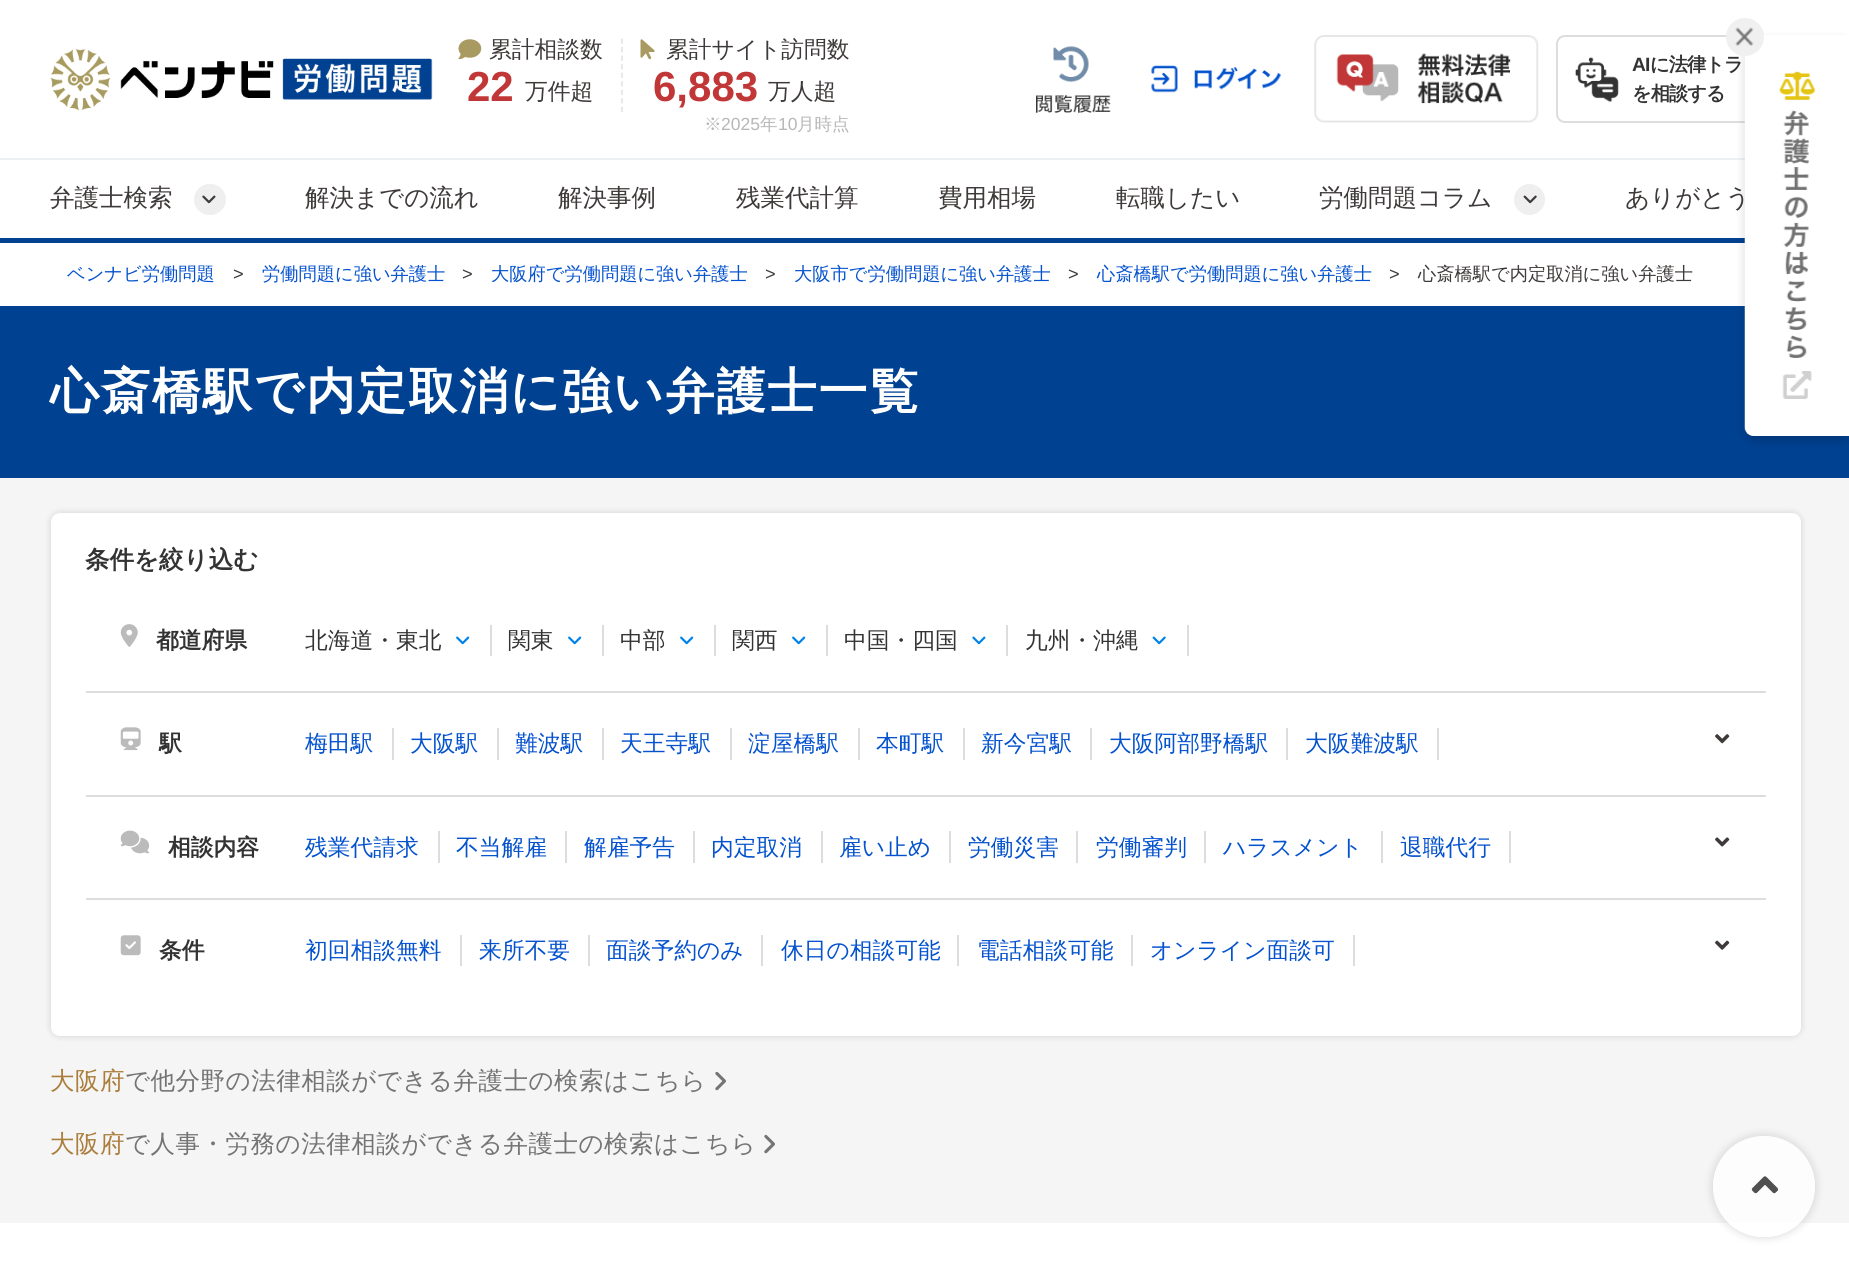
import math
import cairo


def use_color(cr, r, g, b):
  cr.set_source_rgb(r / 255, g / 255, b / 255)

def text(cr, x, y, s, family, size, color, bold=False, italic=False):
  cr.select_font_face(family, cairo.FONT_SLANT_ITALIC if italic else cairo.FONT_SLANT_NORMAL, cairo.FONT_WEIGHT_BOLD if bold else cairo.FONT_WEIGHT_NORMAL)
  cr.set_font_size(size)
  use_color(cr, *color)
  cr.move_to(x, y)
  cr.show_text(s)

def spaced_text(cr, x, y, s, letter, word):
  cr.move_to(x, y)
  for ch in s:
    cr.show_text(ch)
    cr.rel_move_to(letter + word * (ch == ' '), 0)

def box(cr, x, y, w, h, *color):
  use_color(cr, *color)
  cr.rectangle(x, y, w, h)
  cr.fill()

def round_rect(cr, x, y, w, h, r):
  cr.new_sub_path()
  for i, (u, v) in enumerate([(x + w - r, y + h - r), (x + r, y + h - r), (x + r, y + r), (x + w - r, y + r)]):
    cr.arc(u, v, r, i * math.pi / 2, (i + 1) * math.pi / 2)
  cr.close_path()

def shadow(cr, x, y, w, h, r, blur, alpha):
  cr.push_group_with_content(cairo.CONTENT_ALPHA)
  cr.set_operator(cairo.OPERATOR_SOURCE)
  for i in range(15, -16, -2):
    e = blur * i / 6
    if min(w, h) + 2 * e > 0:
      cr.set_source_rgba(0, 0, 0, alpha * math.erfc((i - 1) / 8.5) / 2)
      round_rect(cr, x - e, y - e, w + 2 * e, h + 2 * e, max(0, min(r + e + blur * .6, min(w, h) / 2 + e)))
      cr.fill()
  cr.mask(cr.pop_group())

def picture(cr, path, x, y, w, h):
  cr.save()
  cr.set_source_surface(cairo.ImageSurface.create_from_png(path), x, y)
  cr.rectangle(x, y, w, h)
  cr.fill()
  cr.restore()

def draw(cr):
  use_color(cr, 255, 255, 255)
  cr.paint()
  picture(cr, "img_02.png", 50, 49, 383, 62)
  picture(cr, "img_03.png", 458, 39, 24, 21)
  cr.new_path()
  cr.move_to(622, 38.5)
  cr.line_to(622, 112)
  use_color(cr, 230, 230, 230)
  cr.set_line_width(1.8)
  cr.set_dash([5.25, 3.29])
  cr.stroke()
  picture(cr, "img_04.png", 640, 39, 15, 21)
  picture(cr, "img_05.png", 1035, 46, 76, 67)
  picture(cr, "img_06.png", 1151, 65, 131, 28)
  picture(cr, "img_07.png", 1314, 35, 225, 88)
  round_rect(cr, 1557, 36, 243, 86, 8)
  use_color(cr, 221, 221, 221)
  cr.set_line_width(2)
  cr.set_dash([])
  cr.stroke()
  picture(cr, "img_08.png", 1575, 57, 44, 45)
  box(cr, 0, 158, 1745, 2, 238, 241, 243)
  box(cr, 0, 238, 1745, 5, 0, 65, 145)
  use_color(cr, 239, 239, 239)
  round_rect(cr, 194, 184, 32, 31, 15.5)
  cr.fill()
  picture(cr, "img_09.png", 202, 195, 14, 9)
  cr.arc(1529.5, 199.5, 15.5, 0, 2 * math.pi)
  cr.fill()
  picture(cr, "img_10.png", 1523, 195, 14, 9)
  box(cr, 0, 306, 1849, 172, 0, 65, 145)
  use_color(cr, 0, 0, 0)
  shadow(cr, 1745, 40, 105, 401, 9, 5, 0.16)
  use_color(cr, 255, 255, 255)
  cr.new_path()
  cr.move_to(1754, 35)
  cr.line_to(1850, 35)
  cr.line_to(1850, 436)
  cr.line_to(1754, 436)
  cr.curve_to(1749, 436, 1745, 432, 1745, 427)
  cr.line_to(1745, 44)
  cr.curve_to(1745, 39, 1749, 35, 1754, 35)
  cr.close_path()
  cr.fill()
  picture(cr, "img_11.png", 1744, 35, 71, 401)
  box(cr, 0, 478, 1849, 745, 245, 245, 245)
  use_color(cr, 0, 0, 0)
  shadow(cr, 51, 513, 1750, 523, 9, 3.5, 0.15)
  use_color(cr, 255, 255, 255)
  round_rect(cr, 51, 513, 1750, 523, 9)
  cr.fill()
  box(cr, 86, 691, 1680, 2, 221, 221, 221)
  picture(cr, "img_12.png", 120, 624, 18, 23)
  box(cr, 490, 625, 2, 31, 221, 221, 221)
  picture(cr, "img_13.png", 456, 636, 14, 9)
  box(cr, 602, 625, 2, 31, 221, 221, 221)
  picture(cr, "img_13.png", 568, 636, 14, 9)
  box(cr, 714, 625, 2, 31, 221, 221, 221)
  picture(cr, "img_13.png", 680, 636, 14, 9)
  box(cr, 826, 625, 2, 31, 221, 221, 221)
  picture(cr, "img_13.png", 792, 636, 14, 9)
  box(cr, 1006, 625, 2, 31, 221, 221, 221)
  picture(cr, "img_14.png", 972, 636, 14, 9)
  box(cr, 1187, 625, 2, 31, 221, 221, 221)
  picture(cr, "img_15.png", 1152, 636, 14, 9)
  box(cr, 86, 795, 1680, 2, 221, 221, 221)
  picture(cr, "img_16.png", 120, 727, 21, 24)
  box(cr, 392, 728, 2, 32, 221, 221, 221)
  box(cr, 497, 728, 2, 32, 221, 221, 221)
  box(cr, 602, 728, 2, 32, 221, 221, 221)
  box(cr, 730, 728, 2, 32, 221, 221, 221)
  box(cr, 858, 728, 2, 32, 221, 221, 221)
  box(cr, 963, 728, 2, 32, 221, 221, 221)
  box(cr, 1090, 728, 2, 32, 221, 221, 221)
  box(cr, 1286, 728, 2, 32, 221, 221, 221)
  box(cr, 1437, 728, 2, 32, 221, 221, 221)
  picture(cr, "img_17.png", 1715, 734, 15, 10)
  box(cr, 86, 898, 1680, 2, 221, 221, 221)
  picture(cr, "img_18.png", 120, 830, 30, 24)
  box(cr, 438, 831, 2, 32, 221, 221, 221)
  box(cr, 565, 831, 2, 32, 221, 221, 221)
  box(cr, 693, 831, 2, 32, 221, 221, 221)
  box(cr, 821, 831, 2, 32, 221, 221, 221)
  box(cr, 949, 831, 2, 32, 221, 221, 221)
  box(cr, 1076, 831, 2, 32, 221, 221, 221)
  box(cr, 1204, 831, 2, 32, 221, 221, 221)
  box(cr, 1381, 831, 2, 32, 221, 221, 221)
  box(cr, 1509, 831, 2, 32, 221, 221, 221)
  picture(cr, "img_19.png", 1715, 837, 15, 10)
  picture(cr, "img_20.png", 120, 935, 21, 21)
  box(cr, 460, 935, 2, 31, 221, 221, 221)
  box(cr, 588, 935, 2, 31, 221, 221, 221)
  box(cr, 761, 935, 2, 31, 221, 221, 221)
  box(cr, 957, 935, 2, 31, 221, 221, 221)
  box(cr, 1131, 935, 2, 31, 221, 221, 221)
  box(cr, 1353, 935, 2, 31, 221, 221, 221)
  picture(cr, "img_21.png", 1715, 940, 15, 10)
  picture(cr, "img_22.png", 715, 1071, 11, 20)
  picture(cr, "img_22.png", 764, 1134, 11, 20)
  cr.save()
  cr.set_fill_rule(cairo.FILL_RULE_EVEN_ODD)
  cr.new_path()
  cr.move_to(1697, 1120)
  cr.line_to(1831, 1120)
  cr.line_to(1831, 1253)
  cr.line_to(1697, 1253)
  cr.close_path()
  cr.move_to(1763.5, 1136)
  cr.line_to(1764.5, 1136)
  cr.curve_to(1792.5, 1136, 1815, 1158.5, 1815, 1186.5)
  cr.curve_to(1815, 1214.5, 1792.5, 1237, 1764.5, 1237)
  cr.line_to(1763.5, 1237)
  cr.curve_to(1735.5, 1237, 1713, 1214.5, 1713, 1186.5)
  cr.curve_to(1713, 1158.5, 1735.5, 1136, 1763.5, 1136)
  cr.close_path()
  cr.clip()
  use_color(cr, 0, 0, 0)
  shadow(cr, 1713, 1136, 102, 101, 50.5, 5, 0.16)
  cr.restore()
  cr.set_source_rgba(1, 1, 1, 0.8)
  round_rect(cr, 1713, 1136, 102, 101, 50.5)
  cr.fill()
  picture(cr, "img_23.png", 1751, 1176, 28, 18)
  text(cr, 489, 57, "累計相談数", "WenQuanYi Zen Hei Medium", 22.75, (62, 58, 57))
  text(cr, 467, 101, "22", "Liberation Sans", 42, (193, 54, 54), bold=True)
  text(cr, 525, 99, "万件超", "WenQuanYi Zen Hei Medium", 22.75, (62, 58, 57))
  text(cr, 666, 57, "累計サイト訪問数", "WenQuanYi Zen Hei Medium", 22.75, (62, 58, 57))
  text(cr, 653, 101, "6,883", "Liberation Sans", 42, (193, 54, 54), bold=True)
  text(cr, 768, 99, "万人超", "WenQuanYi Zen Hei Medium", 22.75, (62, 58, 57))
  text(cr, 704, 130, "※", "WenQuanYi Zen Hei Medium", 17.5, (183, 183, 183))
  text(cr, 721, 130, "2025", "Liberation Sans", 17.5, (183, 183, 183))
  text(cr, 760, 130, "年", "WenQuanYi Zen Hei Medium", 17.5, (183, 183, 183))
  text(cr, 778, 130, "10", "Liberation Sans", 17.5, (183, 183, 183))
  text(cr, 797, 130, "月時点", "WenQuanYi Zen Hei Medium", 17.5, (183, 183, 183))
  cr.select_font_face("Liberation Sans", cairo.FONT_SLANT_NORMAL, cairo.FONT_WEIGHT_BOLD)
  cr.set_font_size(19.25)
  use_color(cr, 51, 51, 51)
  spaced_text(cr, 1632, 71, "AI", -1, 0)
  cr.select_font_face("WenQuanYi Zen Hei", cairo.FONT_SLANT_NORMAL, cairo.FONT_WEIGHT_BOLD)
  spaced_text(cr, 1650, 71, "に法律トラ", -1, 0)
  use_color(cr, 240, 240, 240)
  cr.new_path()
  cr.arc(1745, 37, 19, 0, 2 * math.pi)
  cr.fill()
  picture(cr, "img_01.png", 1735, 27, 19, 19)
  use_color(cr, 51, 51, 51)
  spaced_text(cr, 1632, 100, "を相談する", -1, 0)
  text(cr, 50, 206, "弁護士検索", "WenQuanYi Zen Hei Medium", 24.5, (62, 58, 57))
  text(cr, 305, 206, "解決までの流れ", "WenQuanYi Zen Hei Medium", 24.5, (62, 58, 57))
  text(cr, 558, 206, "解決事例", "WenQuanYi Zen Hei Medium", 24.5, (62, 58, 57))
  text(cr, 736, 206, "残業代計算", "WenQuanYi Zen Hei Medium", 24.5, (62, 58, 57))
  text(cr, 938, 206, "費用相場", "WenQuanYi Zen Hei Medium", 24.5, (62, 58, 57))
  text(cr, 1116, 206, "転職したい", "WenQuanYi Zen Hei Medium", 24.5, (62, 58, 57))
  text(cr, 1319, 206, "労働問題コラム", "WenQuanYi Zen Hei Medium", 24.5, (62, 58, 57))
  text(cr, 1625, 206, "ありがとう", "WenQuanYi Zen Hei Medium", 24.5, (62, 58, 57))
  text(cr, 67, 280, "ベンナビ労働問題", "WenQuanYi Zen Hei Medium", 18.25, (4, 82, 206))
  text(cr, 233, 280, ">", "Liberation Sans", 18.25, (62, 58, 57))
  text(cr, 262, 280, "労働問題に強い弁護士", "WenQuanYi Zen Hei Medium", 18.25, (4, 82, 206))
  text(cr, 462, 280, ">", "Liberation Sans", 18.25, (62, 58, 57))
  text(cr, 491, 280, "大阪府で労働問題に強い弁護士", "WenQuanYi Zen Hei Medium", 18.25, (4, 82, 206))
  text(cr, 765, 280, ">", "Liberation Sans", 18.25, (62, 58, 57))
  text(cr, 794, 280, "大阪市で労働問題に強い弁護士", "WenQuanYi Zen Hei Medium", 18.25, (4, 82, 206))
  text(cr, 1068, 280, ">", "Liberation Sans", 18.25, (62, 58, 57))
  text(cr, 1097, 280, "心斎橋駅で労働問題に強い弁護士", "WenQuanYi Zen Hei Medium", 18.25, (4, 82, 206))
  text(cr, 1389, 280, ">", "Liberation Sans", 18.25, (62, 58, 57))
  text(cr, 1418, 280, "心斎橋駅で内定取消に強い弁護士", "WenQuanYi Zen Hei Medium", 18.25, (62, 58, 57))
  cr.select_font_face("WenQuanYi Zen Hei", cairo.FONT_SLANT_NORMAL, cairo.FONT_WEIGHT_BOLD)
  cr.set_font_size(49)
  use_color(cr, 255, 255, 255)
  spaced_text(cr, 50, 408, "心斎橋駅で内定取消に強い弁護士一覧", 2, 0)
  text(cr, 85, 568, "条件を絞り込む", "WenQuanYi Zen Hei", 24.5, (51, 51, 51), bold=True)
  text(cr, 156, 648, "都道府県", "WenQuanYi Zen Hei", 22.75, (51, 51, 51), bold=True)
  text(cr, 305, 648, "北海道・東北", "WenQuanYi Zen Hei Medium", 22.75, (51, 51, 51))
  text(cr, 508, 648, "関東", "WenQuanYi Zen Hei Medium", 22.75, (51, 51, 51))
  text(cr, 620, 648, "中部", "WenQuanYi Zen Hei Medium", 22.75, (51, 51, 51))
  text(cr, 732, 648, "関西", "WenQuanYi Zen Hei Medium", 22.75, (51, 51, 51))
  text(cr, 844, 648, "中国・四国", "WenQuanYi Zen Hei Medium", 22.75, (51, 51, 51))
  text(cr, 1025, 648, "九州・沖縄", "WenQuanYi Zen Hei Medium", 22.75, (51, 51, 51))
  text(cr, 159, 751, "駅", "WenQuanYi Zen Hei", 22.75, (51, 51, 51), bold=True)
  text(cr, 305, 751, "梅田駅", "WenQuanYi Zen Hei Medium", 22.75, (4, 82, 206))
  text(cr, 410, 751, "大阪駅", "WenQuanYi Zen Hei Medium", 22.75, (4, 82, 206))
  text(cr, 515, 751, "難波駅", "WenQuanYi Zen Hei Medium", 22.75, (4, 82, 206))
  text(cr, 620, 751, "天王寺駅", "WenQuanYi Zen Hei Medium", 22.75, (4, 82, 206))
  text(cr, 748, 751, "淀屋橋駅", "WenQuanYi Zen Hei Medium", 22.75, (4, 82, 206))
  text(cr, 876, 751, "本町駅", "WenQuanYi Zen Hei Medium", 22.75, (4, 82, 206))
  text(cr, 981, 751, "新今宮駅", "WenQuanYi Zen Hei Medium", 22.75, (4, 82, 206))
  text(cr, 1109, 751, "大阪阿部野橋駅", "WenQuanYi Zen Hei Medium", 22.75, (4, 82, 206))
  text(cr, 1305, 751, "大阪難波駅", "WenQuanYi Zen Hei Medium", 22.75, (4, 82, 206))
  text(cr, 168, 855, "相談内容", "WenQuanYi Zen Hei", 22.75, (51, 51, 51), bold=True)
  text(cr, 305, 855, "残業代請求", "WenQuanYi Zen Hei Medium", 22.75, (4, 82, 206))
  text(cr, 456, 855, "不当解雇", "WenQuanYi Zen Hei Medium", 22.75, (4, 82, 206))
  text(cr, 584, 855, "解雇予告", "WenQuanYi Zen Hei Medium", 22.75, (4, 82, 206))
  text(cr, 711, 855, "内定取消", "WenQuanYi Zen Hei Medium", 22.75, (4, 82, 206))
  text(cr, 839, 855, "雇い止め", "WenQuanYi Zen Hei Medium", 22.75, (4, 82, 206))
  text(cr, 968, 855, "労働災害", "WenQuanYi Zen Hei Medium", 22.75, (4, 82, 206))
  text(cr, 1096, 855, "労働審判", "WenQuanYi Zen Hei Medium", 22.75, (4, 82, 206))
  text(cr, 1223, 855, "ハラスメント", "WenQuanYi Zen Hei Medium", 22.75, (4, 82, 206))
  text(cr, 1400, 855, "退職代行", "WenQuanYi Zen Hei Medium", 22.75, (4, 82, 206))
  text(cr, 159, 958, "条件", "WenQuanYi Zen Hei", 22.75, (51, 51, 51), bold=True)
  text(cr, 305, 958, "初回相談無料", "WenQuanYi Zen Hei Medium", 22.75, (4, 82, 206))
  text(cr, 479, 958, "来所不要", "WenQuanYi Zen Hei Medium", 22.75, (4, 82, 206))
  text(cr, 606, 958, "面談予約のみ", "WenQuanYi Zen Hei Medium", 22.75, (4, 82, 206))
  text(cr, 781, 958, "休日の相談可能", "WenQuanYi Zen Hei Medium", 22.75, (4, 82, 206))
  text(cr, 977, 958, "電話相談可能", "WenQuanYi Zen Hei Medium", 22.75, (4, 82, 206))
  text(cr, 1150, 958, "オンライン面談可", "WenQuanYi Zen Hei Medium", 22.75, (4, 82, 206))
  cr.set_font_size(24.5)
  use_color(cr, 170, 125, 59)
  spaced_text(cr, 50, 1089, "大阪府", 0.5, 0)
  use_color(cr, 116, 116, 116)
  spaced_text(cr, 125, 1089, "で他分野の法律相談ができる弁護士の検索はこちら", 0.5, 0)
  use_color(cr, 170, 125, 59)
  spaced_text(cr, 50, 1152, "大阪府", 0.5, 0)
  use_color(cr, 116, 116, 116)
  spaced_text(cr, 125, 1152, "で人事・労務の法律相談ができる弁護士の検索はこちら", 0.5, 0)


surface = cairo.ImageSurface(cairo.FORMAT_RGB24, 1849, 1272)
cr = cairo.Context(surface)
options = cairo.FontOptions()
options.set_hint_metrics(cairo.HINT_METRICS_OFF)
options.set_hint_style(cairo.HINT_STYLE_NONE)
cr.set_font_options(options)
cr.set_miter_limit(4)
draw(cr)
surface.write_to_png("out.png")
